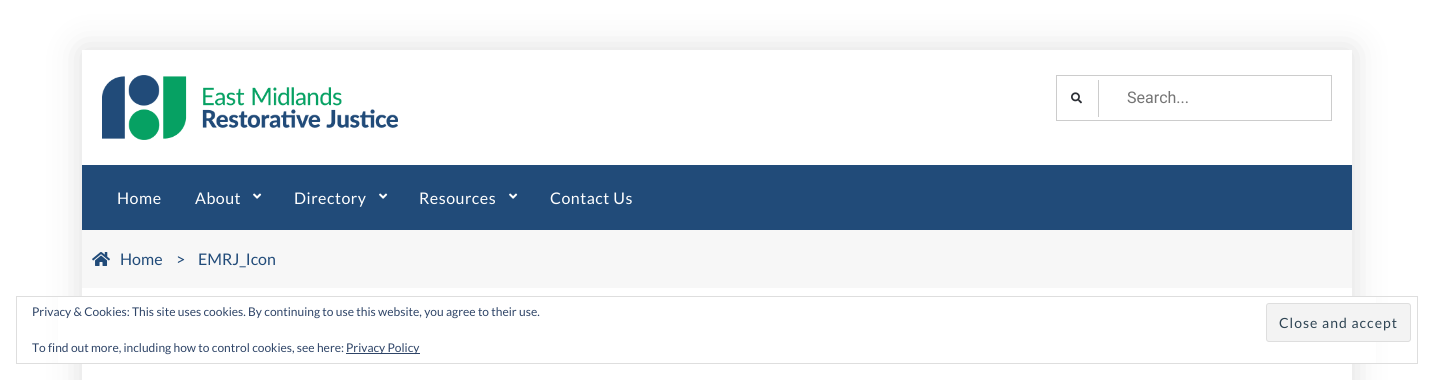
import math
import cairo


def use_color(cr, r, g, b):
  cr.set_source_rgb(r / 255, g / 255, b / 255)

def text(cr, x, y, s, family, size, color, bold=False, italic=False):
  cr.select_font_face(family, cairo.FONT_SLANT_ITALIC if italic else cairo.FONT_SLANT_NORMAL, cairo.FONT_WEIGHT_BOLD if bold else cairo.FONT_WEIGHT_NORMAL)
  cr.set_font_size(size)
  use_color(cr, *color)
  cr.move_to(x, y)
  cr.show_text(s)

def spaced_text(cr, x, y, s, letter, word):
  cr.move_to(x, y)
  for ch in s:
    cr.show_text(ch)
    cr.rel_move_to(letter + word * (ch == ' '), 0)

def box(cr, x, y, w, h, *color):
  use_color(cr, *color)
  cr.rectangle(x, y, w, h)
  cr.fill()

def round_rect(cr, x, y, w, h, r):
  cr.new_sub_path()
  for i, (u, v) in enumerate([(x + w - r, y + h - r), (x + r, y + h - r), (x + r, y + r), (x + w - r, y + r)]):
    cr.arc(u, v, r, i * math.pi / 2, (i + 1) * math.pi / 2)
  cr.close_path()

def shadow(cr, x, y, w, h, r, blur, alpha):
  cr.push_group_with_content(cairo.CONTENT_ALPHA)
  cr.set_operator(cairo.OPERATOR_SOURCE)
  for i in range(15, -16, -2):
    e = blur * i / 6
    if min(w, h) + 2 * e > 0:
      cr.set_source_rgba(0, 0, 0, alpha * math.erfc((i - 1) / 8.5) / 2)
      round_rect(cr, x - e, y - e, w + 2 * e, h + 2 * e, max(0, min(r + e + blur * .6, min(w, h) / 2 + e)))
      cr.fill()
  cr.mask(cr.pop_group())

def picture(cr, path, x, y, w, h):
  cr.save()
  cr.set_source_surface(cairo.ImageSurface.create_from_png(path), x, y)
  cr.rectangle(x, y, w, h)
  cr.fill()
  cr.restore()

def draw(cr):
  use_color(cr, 255, 255, 255)
  cr.paint()
  cr.save()
  cr.set_fill_rule(cairo.FILL_RULE_EVEN_ODD)
  cr.new_path()
  cr.move_to(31, 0)
  cr.line_to(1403, 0)
  cr.line_to(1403, 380)
  cr.line_to(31, 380)
  cr.close_path()
  cr.move_to(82, 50)
  cr.line_to(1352, 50)
  cr.line_to(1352, 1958)
  cr.line_to(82, 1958)
  cr.close_path()
  cr.clip()
  use_color(cr, 221, 221, 221)
  shadow(cr, 82, 50, 1270, 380, 0, 16.5, 1)
  cr.restore()
  picture(cr, "img_01.png", 102, 75, 296, 65)
  cr.rectangle(1056.5, 75.5, 275, 45)
  use_color(cr, 204, 204, 204)
  cr.set_line_width(1)
  cr.stroke()
  box(cr, 1098, 80, 1, 37, 204, 204, 204)
  picture(cr, "img_02.png", 1071, 92, 11, 12)
  box(cr, 82, 165, 1270, 65, 33, 75, 121)
  picture(cr, "img_03.png", 253, 193, 9, 6)
  picture(cr, "img_03.png", 379, 193, 9, 6)
  picture(cr, "img_03.png", 509, 193, 9, 6)
  box(cr, 82, 230, 1270, 58, 247, 247, 247)
  picture(cr, "img_04.png", 92, 252, 18, 14)
  box(cr, 58, 297, 1318, 66, 255, 255, 255)
  cr.rectangle(16.5, 296.5, 1401, 67)
  use_color(cr, 222, 222, 222)
  cr.stroke()
  use_color(cr, 243, 243, 243)
  round_rect(cr, 1266.5, 303.5, 144, 38, 2.5)
  cr.fill_preserve()
  use_color(cr, 222, 222, 222)
  cr.stroke()
  box(cr, 346, 353, 74, 1, 46, 68, 103)
  text(cr, 1127, 103, "Search...", "Heebo", 16, (117, 117, 117))
  cr.select_font_face("Lato")
  use_color(cr, 255, 255, 255)
  spaced_text(cr, 117, 204, "Home", 0.5, 0)
  spaced_text(cr, 195, 204, "About", 0.5, 0)
  spaced_text(cr, 294, 204, "Directory", 0.5, 0)
  spaced_text(cr, 419, 204, "Resources", 0.5, 0)
  spaced_text(cr, 550, 204, "Contact Us", 0.5, 0)
  text(cr, 120, 265, "Home", "Lato", 16, (33, 75, 121))
  text(cr, 176, 265, ">", "Lato", 16, (33, 75, 121))
  text(cr, 198, 265, "EMRJ_Icon", "Lato", 16, (33, 75, 121))
  text(cr, 32, 316, "Privacy & Cookies: This site uses cookies. By continuing to use this website, you agree to their use.", "Lato", 12, (46, 68, 103))
  cr.set_font_size(14)
  use_color(cr, 46, 68, 83)
  spaced_text(cr, 1279, 328, "Close and accept", 1, 0)
  text(cr, 32, 352, "To find out more, including how to control cookies, see here:", "Lato", 12, (46, 68, 103))
  text(cr, 346, 352, "Privacy Policy", "Lato", 12, (46, 68, 103))


surface = cairo.ImageSurface(cairo.FORMAT_RGB24, 1434, 380)
cr = cairo.Context(surface)
options = cairo.FontOptions()
options.set_hint_metrics(cairo.HINT_METRICS_OFF)
options.set_hint_style(cairo.HINT_STYLE_NONE)
cr.set_font_options(options)
cr.set_miter_limit(4)
draw(cr)
surface.write_to_png("out.png")
